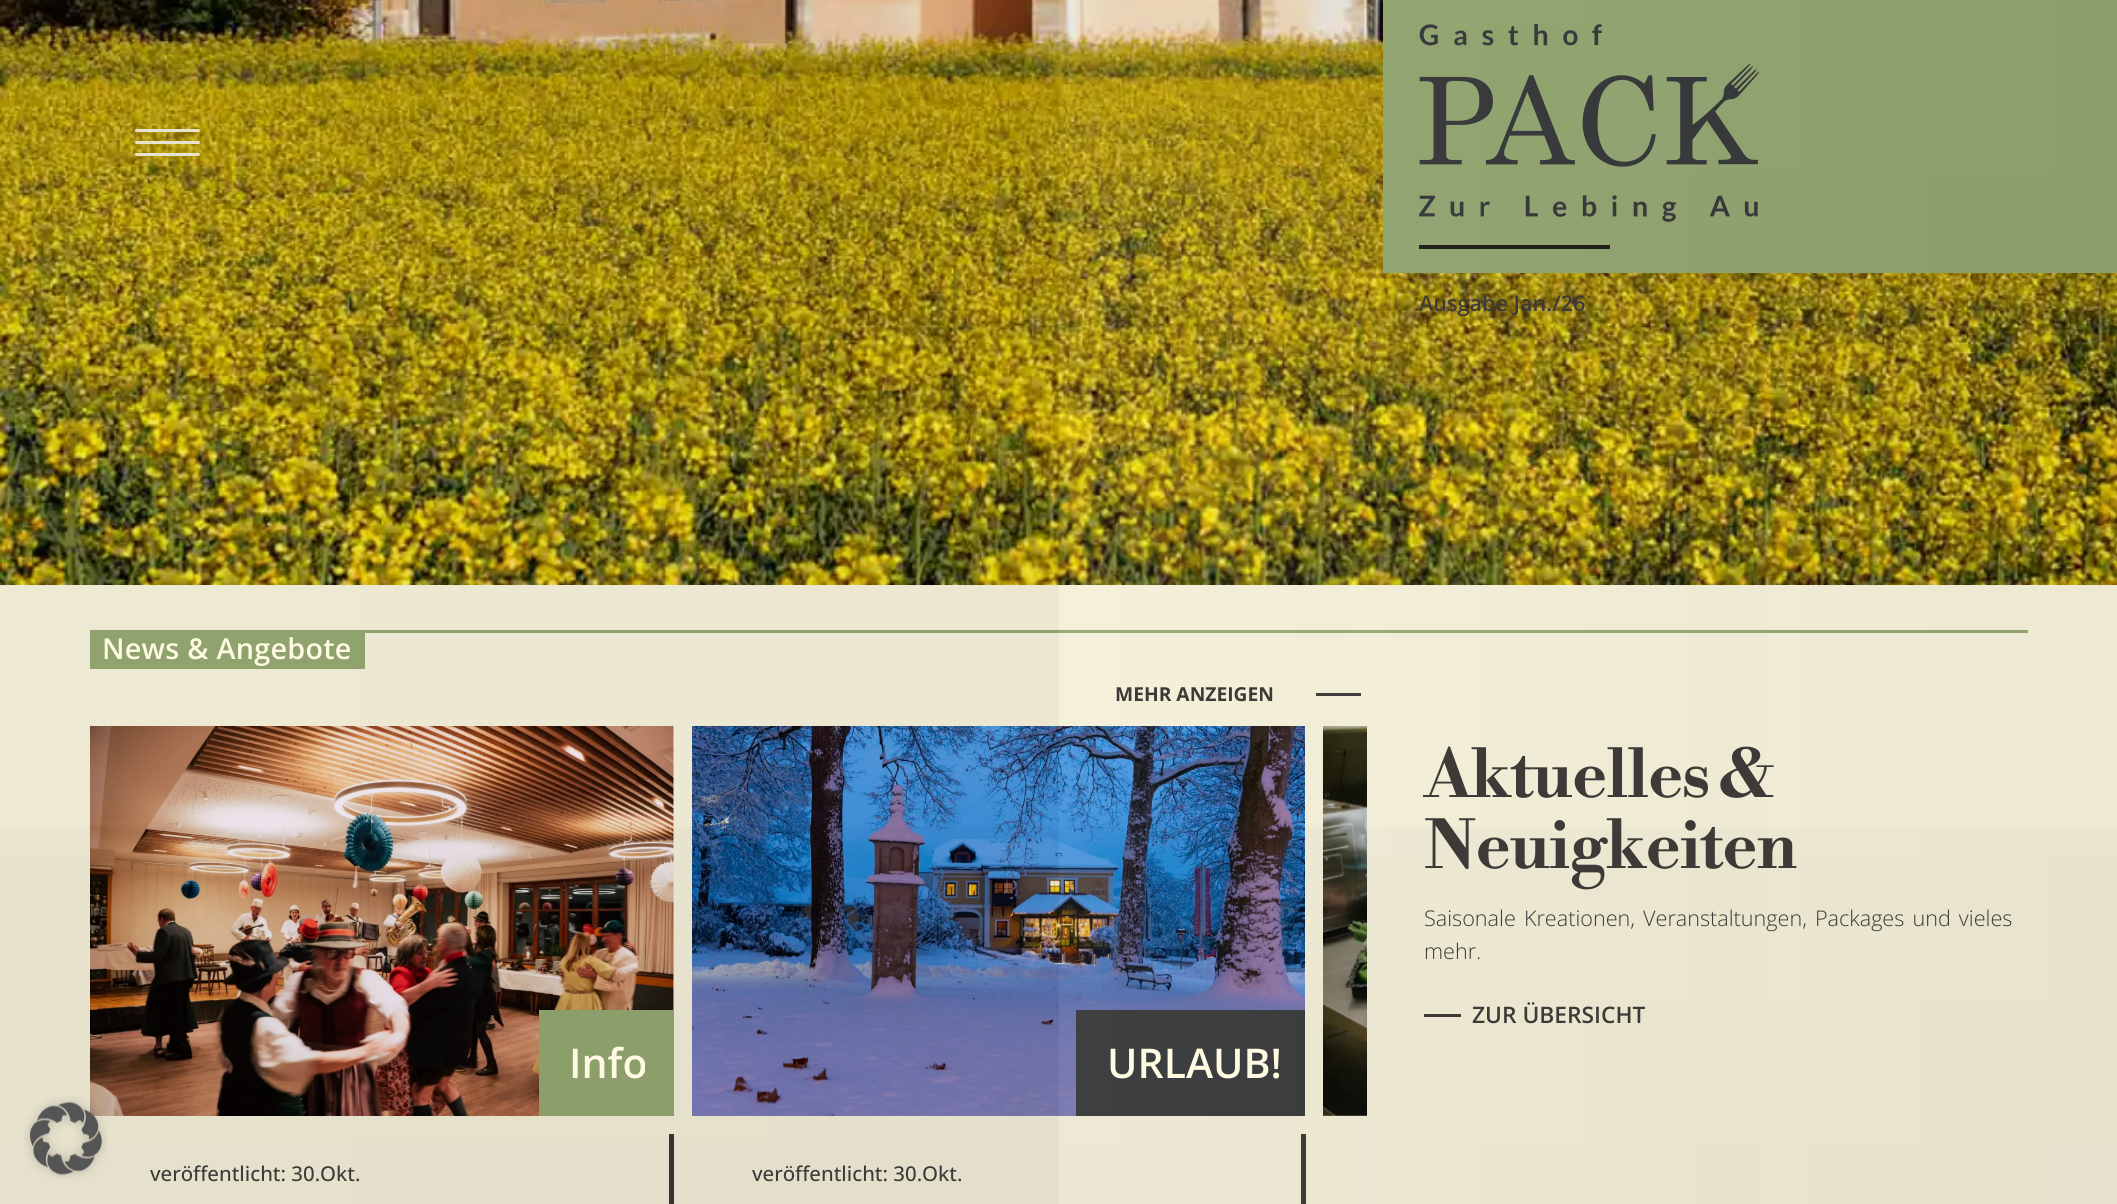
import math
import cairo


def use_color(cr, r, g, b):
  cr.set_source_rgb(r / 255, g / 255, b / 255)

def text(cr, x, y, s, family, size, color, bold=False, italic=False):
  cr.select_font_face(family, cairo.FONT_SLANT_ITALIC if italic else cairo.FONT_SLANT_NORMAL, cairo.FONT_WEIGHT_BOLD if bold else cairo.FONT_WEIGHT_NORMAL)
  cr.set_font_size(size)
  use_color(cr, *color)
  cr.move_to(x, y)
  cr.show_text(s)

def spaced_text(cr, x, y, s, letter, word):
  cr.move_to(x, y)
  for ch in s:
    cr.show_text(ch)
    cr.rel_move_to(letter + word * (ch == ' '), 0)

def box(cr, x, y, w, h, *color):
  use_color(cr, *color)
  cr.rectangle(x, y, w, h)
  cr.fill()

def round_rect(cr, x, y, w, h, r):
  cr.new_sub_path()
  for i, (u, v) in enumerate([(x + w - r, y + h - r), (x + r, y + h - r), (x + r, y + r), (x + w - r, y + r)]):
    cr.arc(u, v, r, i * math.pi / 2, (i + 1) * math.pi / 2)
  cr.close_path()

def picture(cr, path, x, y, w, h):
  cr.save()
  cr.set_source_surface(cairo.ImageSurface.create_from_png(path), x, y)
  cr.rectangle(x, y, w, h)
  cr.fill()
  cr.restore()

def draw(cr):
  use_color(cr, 255, 250, 226)
  cr.paint()
  picture(cr, "img_03.png", 0, 0, 2117, 585)
  use_color(cr, 255, 250, 226)
  round_rect(cr, 135, 129, 65, 3, 1.5)
  cr.fill()
  round_rect(cr, 135, 141, 65, 3, 1.5)
  cr.fill()
  round_rect(cr, 135, 153, 65, 3, 1.5)
  cr.fill()
  box(cr, 1383, 0, 734, 273, 155, 176, 119)
  picture(cr, "img_02.png", 1419, 24, 340, 225)
  box(cr, 90, 630, 1938, 3, 155, 176, 119)
  box(cr, 90, 633, 275, 36, 155, 176, 119)
  box(cr, 1316, 693, 45, 3, 61, 58, 56)
  picture(cr, "img_04.png", 90, 726, 584, 390)
  box(cr, 539, 1010, 135, 106, 155, 176, 119)
  box(cr, 669, 1134, 5, 70, 61, 58, 56)
  picture(cr, "img_05.png", 692, 726, 613, 390)
  box(cr, 1076, 1010, 229, 106, 57, 59, 61)
  box(cr, 1301, 1134, 5, 70, 61, 58, 56)
  picture(cr, "img_06.png", 1323, 726, 44, 390)
  box(cr, 1424, 1014, 37, 3, 61, 58, 56)
  gradient = cairo.LinearGradient(0, 827, 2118, 827)
  gradient.add_color_stop_rgba(0, 0, 0, 0, 0.03)
  gradient.add_color_stop_rgba(0.5, 0, 0, 0, 0.04)
  gradient.add_color_stop_rgba(0.5, 1, 1, 1, 0.09)
  gradient.add_color_stop_rgba(0.5, 1, 1, 1, 0.04)
  gradient.add_color_stop_rgba(1, 0, 0, 0, 0.03)
  cr.set_source(gradient)
  cr.rectangle(0, 0, 2117, 1204)
  cr.fill()
  gradient = cairo.LinearGradient(1059, 0, 1059, 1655)
  gradient.add_color_stop_rgba(0, 0, 0, 0, 0.06)
  gradient.add_color_stop_rgba(0.22, 0, 0, 0, 0.07)
  gradient.add_color_stop_rgba(0.25, 0, 0, 0, 0.08)
  gradient.add_color_stop_rgba(0.25, 0, 0, 0, 0.13)
  gradient.add_color_stop_rgba(0.25, 0, 0, 0, 0.01)
  gradient.add_color_stop_rgba(0.28, 0, 0, 0, 0.04)
  gradient.add_color_stop_rgba(0.5, 0, 0, 0, 0.04)
  gradient.add_color_stop_rgba(0.5, 0, 0, 0, 0.09)
  gradient.add_color_stop_rgba(0.5, 0, 0, 0, 0.06)
  gradient.add_color_stop_rgba(0.72, 0, 0, 0, 0.07)
  gradient.add_color_stop_rgba(0.75, 0, 0, 0, 0.08)
  gradient.add_color_stop_rgba(0.75, 0, 0, 0, 0.13)
  gradient.add_color_stop_rgba(0.75, 0, 0, 0, 0.01)
  gradient.add_color_stop_rgba(0.78, 0, 0, 0, 0.04)
  gradient.add_color_stop_rgba(1, 0, 0, 0, 0.04)
  cr.set_source(gradient)
  cr.rectangle(0, 0, 2117, 1204)
  cr.fill()
  picture(cr, "img_01.png", 24, 1096, 84, 84)
  text(cr, 1419, 311, "Ausgabe Jan./26", "Open Sans SemiBold", 21.6, (61, 58, 56))
  cr.set_font_size(28.75)
  use_color(cr, 255, 250, 226)
  spaced_text(cr, 102, 659, "News & Angebote", 0.25, 0)
  text(cr, 1115, 701, "MEHR ANZEIGEN", "Open Sans", 19.25, (61, 58, 56), bold=True)
  text(cr, 569, 1078, "Info", "Open Sans SemiBold", 41, (255, 250, 226))
  text(cr, 150, 1181, "veröffentlicht: 30.Okt.", "Open Sans Medium", 20.4, (61, 58, 56))
  text(cr, 1107, 1078, "URLAUB!", "Open Sans SemiBold", 41, (255, 250, 226))
  text(cr, 752, 1181, "veröffentlicht: 30.Okt.", "Open Sans Medium", 20.4, (61, 58, 56))
  cr.select_font_face("Libre Bodoni", cairo.FONT_SLANT_NORMAL, cairo.FONT_WEIGHT_BOLD)
  cr.set_font_size(66)
  spaced_text(cr, 1424, 797, "Aktuelles &", -1, 0)
  spaced_text(cr, 1424, 868, "Neuigkeiten", -1, 0)
  cr.select_font_face("Open Sans Light")
  cr.set_font_size(21.6)
  spaced_text(cr, 1424, 926, "Saisonale Kreationen, Veranstaltungen, Packages und vieles", 0, 2.5)
  text(cr, 1424, 959, "mehr.", "Open Sans Light", 21.6, (61, 58, 56))
  text(cr, 1472, 1023, "ZUR ÜBERSICHT", "Open Sans SemiBold", 22.75, (61, 58, 56))


surface = cairo.ImageSurface(cairo.FORMAT_RGB24, 2117, 1204)
cr = cairo.Context(surface)
options = cairo.FontOptions()
options.set_hint_metrics(cairo.HINT_METRICS_OFF)
options.set_hint_style(cairo.HINT_STYLE_NONE)
cr.set_font_options(options)
cr.set_miter_limit(4)
draw(cr)
surface.write_to_png("out.png")
